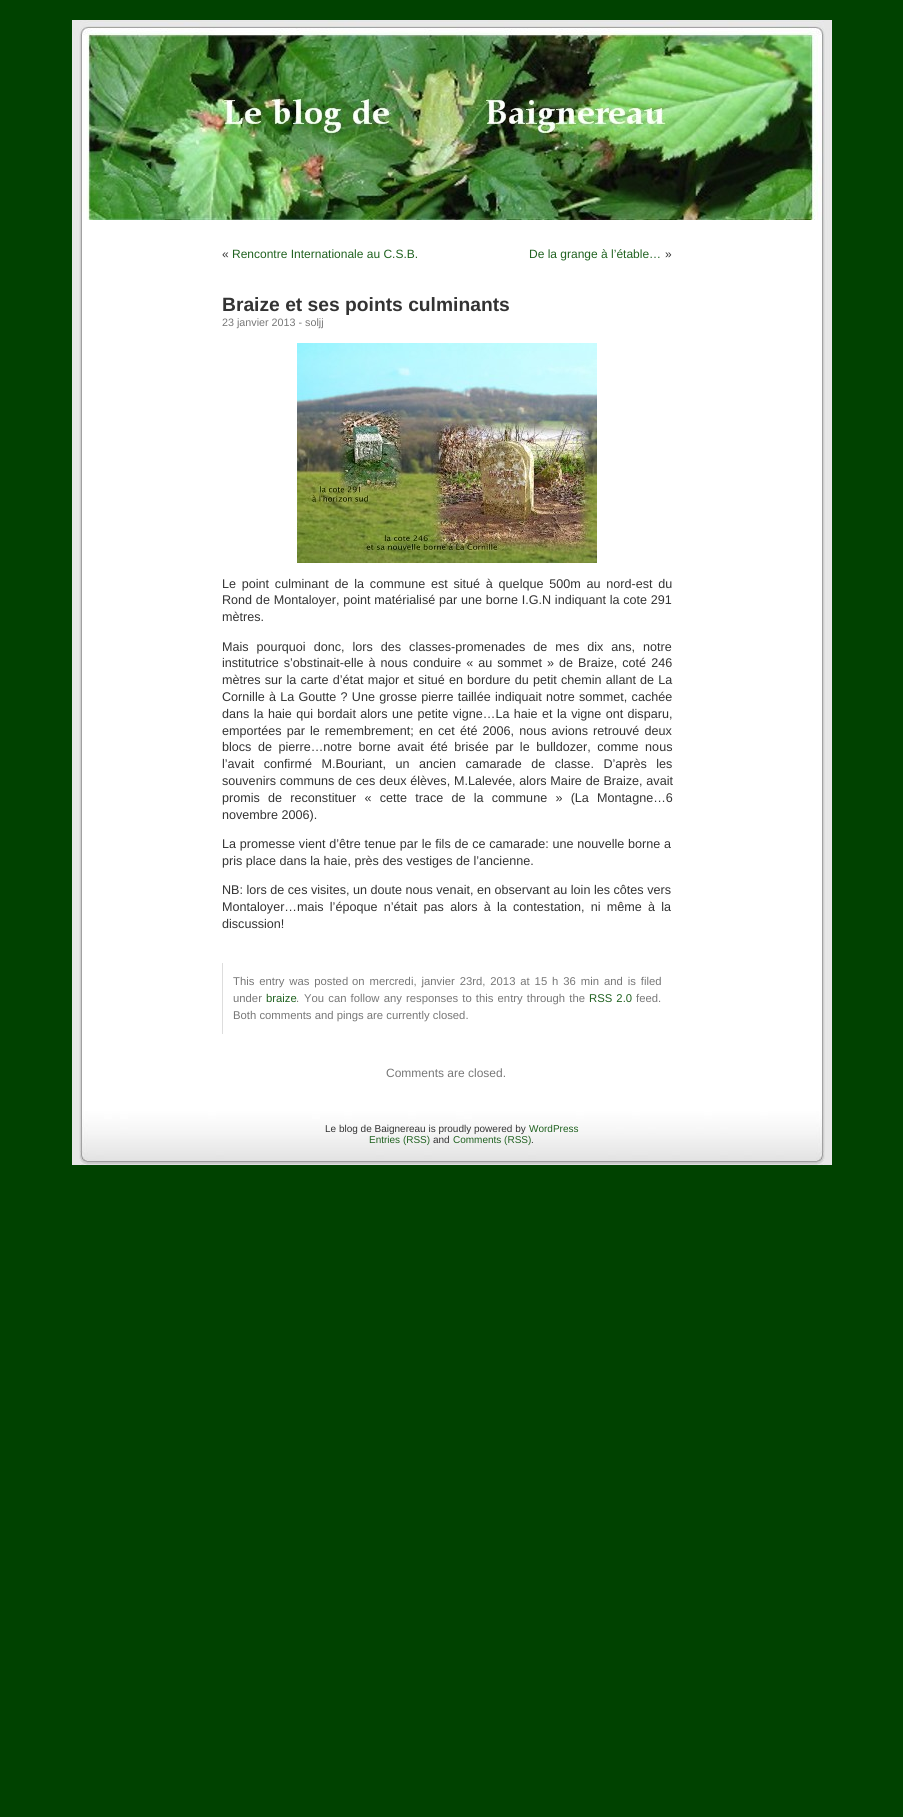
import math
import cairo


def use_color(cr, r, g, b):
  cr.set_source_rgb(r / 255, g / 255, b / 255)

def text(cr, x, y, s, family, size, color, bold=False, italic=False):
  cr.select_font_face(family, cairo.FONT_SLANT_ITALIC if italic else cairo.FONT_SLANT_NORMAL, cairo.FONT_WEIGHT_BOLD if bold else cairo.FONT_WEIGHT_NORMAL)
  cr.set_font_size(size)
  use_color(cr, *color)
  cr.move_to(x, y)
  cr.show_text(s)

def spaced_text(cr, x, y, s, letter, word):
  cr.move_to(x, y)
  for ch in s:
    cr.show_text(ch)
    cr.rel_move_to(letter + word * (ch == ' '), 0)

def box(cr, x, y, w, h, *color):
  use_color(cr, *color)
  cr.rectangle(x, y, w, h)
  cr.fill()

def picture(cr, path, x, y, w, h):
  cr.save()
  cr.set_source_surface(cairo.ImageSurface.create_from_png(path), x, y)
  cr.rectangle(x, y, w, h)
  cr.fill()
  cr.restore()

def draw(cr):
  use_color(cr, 0, 66, 0)
  cr.paint()
  picture(cr, "img_01.png", 72, 20, 760, 1083)
  picture(cr, "img_02.png", 73, 20, 758, 200)
  picture(cr, "img_03.png", 297, 343, 300, 220)
  box(cr, 222, 963, 1, 71, 221, 221, 221)
  box(cr, 72, 1103, 760, 62, 231, 231, 231)
  picture(cr, "img_04.png", 79, 1103, 746, 62)
  text(cr, 222, 258, "«", "Liberation Sans", 12, (51, 51, 51))
  text(cr, 232, 258, "Rencontre Internationale au C.S.B.", "Liberation Sans", 12, (32, 98, 32))
  text(cr, 529, 258, "De la grange à l’étable…", "Liberation Sans", 12, (32, 98, 32))
  text(cr, 665, 258, "»", "Liberation Sans", 12, (51, 51, 51))
  text(cr, 222, 311, "Braize et ses points culminants", "Liberation Sans", 19.25, (51, 51, 51), bold=True)
  text(cr, 222, 326, "23 janvier 2013 - soljj", "Liberation Sans", 10.75, (119, 119, 119))
  cr.set_font_size(12.6)
  use_color(cr, 51, 51, 51)
  spaced_text(cr, 222, 588, "Le point culminant de la commune est situé à quelque 500m au nord-est du", 0, 2.25)
  spaced_text(cr, 222, 604, "Rond de Montaloyer, point matérialisé par une borne I.G.N indiquant la cote 291", 0, 0.25)
  text(cr, 222, 621, "mètres.", "Liberation Sans", 12.6, (51, 51, 51))
  spaced_text(cr, 222, 651, "Mais pourquoi donc, lors des classes-promenades de mes dix ans, notre", 0, 4.5)
  spaced_text(cr, 222, 667, "institutrice s’obstinait-elle à nous conduire « au sommet » de Braize, coté 246", 0, 1.5)
  spaced_text(cr, 222, 684, "mètres sur la carte d’état major et situé en bordure du petit chemin allant de La", 0, 0.7)
  spaced_text(cr, 222, 701, "Cornille à La Goutte ? Une grosse pierre taillée indiquait notre sommet, cachée", 0, 0.75)
  spaced_text(cr, 222, 718, "dans la haie qui bordait alors une petite vigne…La haie et la vigne ont disparu,", 0, 0.9)
  spaced_text(cr, 222, 735, "emportées par le remembrement; en cet été 2006, nous avions retrouvé deux", 0, 1.6)
  spaced_text(cr, 222, 751, "blocs de pierre…notre borne avait été brisée par le bulldozer, comme nous", 0, 3)
  spaced_text(cr, 222, 768, "l’avait confirmé M.Bouriant, un ancien camarade de classe. D’après les", 0, 6)
  spaced_text(cr, 222, 785, "souvenirs communs de ces deux élèves, M.Lalevée, alors Maire de Braize, avait", 0, 0.25)
  spaced_text(cr, 222, 802, "promis de reconstituer « cette trace de la commune » (La Montagne…6", 0, 4.75)
  text(cr, 222, 819, "novembre 2006).", "Liberation Sans", 12.6, (51, 51, 51))
  spaced_text(cr, 222, 848, "La promesse vient d’être tenue par le fils de ce camarade: une nouvelle borne a", 0, 0.25)
  text(cr, 222, 865, "pris place dans la haie, près des vestiges de l’ancienne.", "Liberation Sans", 12.6, (51, 51, 51))
  text(cr, 222, 894, "NB: lors de ces visites, un doute nous venait, en observant au loin les côtes vers", "Liberation Sans", 12.6, (51, 51, 51))
  spaced_text(cr, 222, 911, "Montaloyer…mais l’époque n’était pas alors à la contestation, ni même à la", 0, 2.75)
  text(cr, 222, 928, "discussion!", "Liberation Sans", 12.6, (51, 51, 51))
  cr.set_font_size(11.3)
  use_color(cr, 119, 119, 119)
  spaced_text(cr, 233, 985, "This entry was posted", 0, 1.75)
  spaced_text(cr, 352, 985, "on mercredi, janvier 23rd, 2013 at 15 h 36 min", 0, 1.75)
  spaced_text(cr, 604, 985, "and is filed", 0, 1.75)
  text(cr, 233, 1002, "under", "Liberation Sans", 11.3, (119, 119, 119))
  text(cr, 266, 1002, "braize", "Liberation Sans", 11.3, (32, 98, 32))
  text(cr, 296, 1002, ".", "Liberation Sans", 11.3, (119, 119, 119))
  spaced_text(cr, 304, 1002, "You can follow any responses to this entry through the", 0, 1)
  use_color(cr, 32, 98, 32)
  spaced_text(cr, 589, 1002, "RSS 2.0", 0, 1)
  text(cr, 636, 1002, "feed.", "Liberation Sans", 11.3, (119, 119, 119))
  text(cr, 233, 1019, "Both comments and pings are currently closed.", "Liberation Sans", 11.3, (119, 119, 119))
  text(cr, 386, 1077, "Comments are closed.", "Liberation Sans", 12, (119, 119, 119))
  text(cr, 325, 1132, "Le blog de Baignereau is proudly powered by", "Liberation Sans", 10, (51, 51, 51))
  text(cr, 529, 1132, "WordPress", "Liberation Sans", 10, (32, 98, 32))
  text(cr, 369, 1143, "Entries (RSS)", "Liberation Sans", 10, (32, 98, 32))
  text(cr, 433, 1143, "and", "Liberation Sans", 10, (51, 51, 51))
  text(cr, 453, 1143, "Comments (RSS)", "Liberation Sans", 10, (32, 98, 32))
  text(cr, 531, 1143, ".", "Liberation Sans", 10, (51, 51, 51))


surface = cairo.ImageSurface(cairo.FORMAT_RGB24, 903, 1817)
cr = cairo.Context(surface)
options = cairo.FontOptions()
options.set_hint_metrics(cairo.HINT_METRICS_OFF)
options.set_hint_style(cairo.HINT_STYLE_NONE)
cr.set_font_options(options)
cr.set_miter_limit(4)
draw(cr)
surface.write_to_png("out.png")
